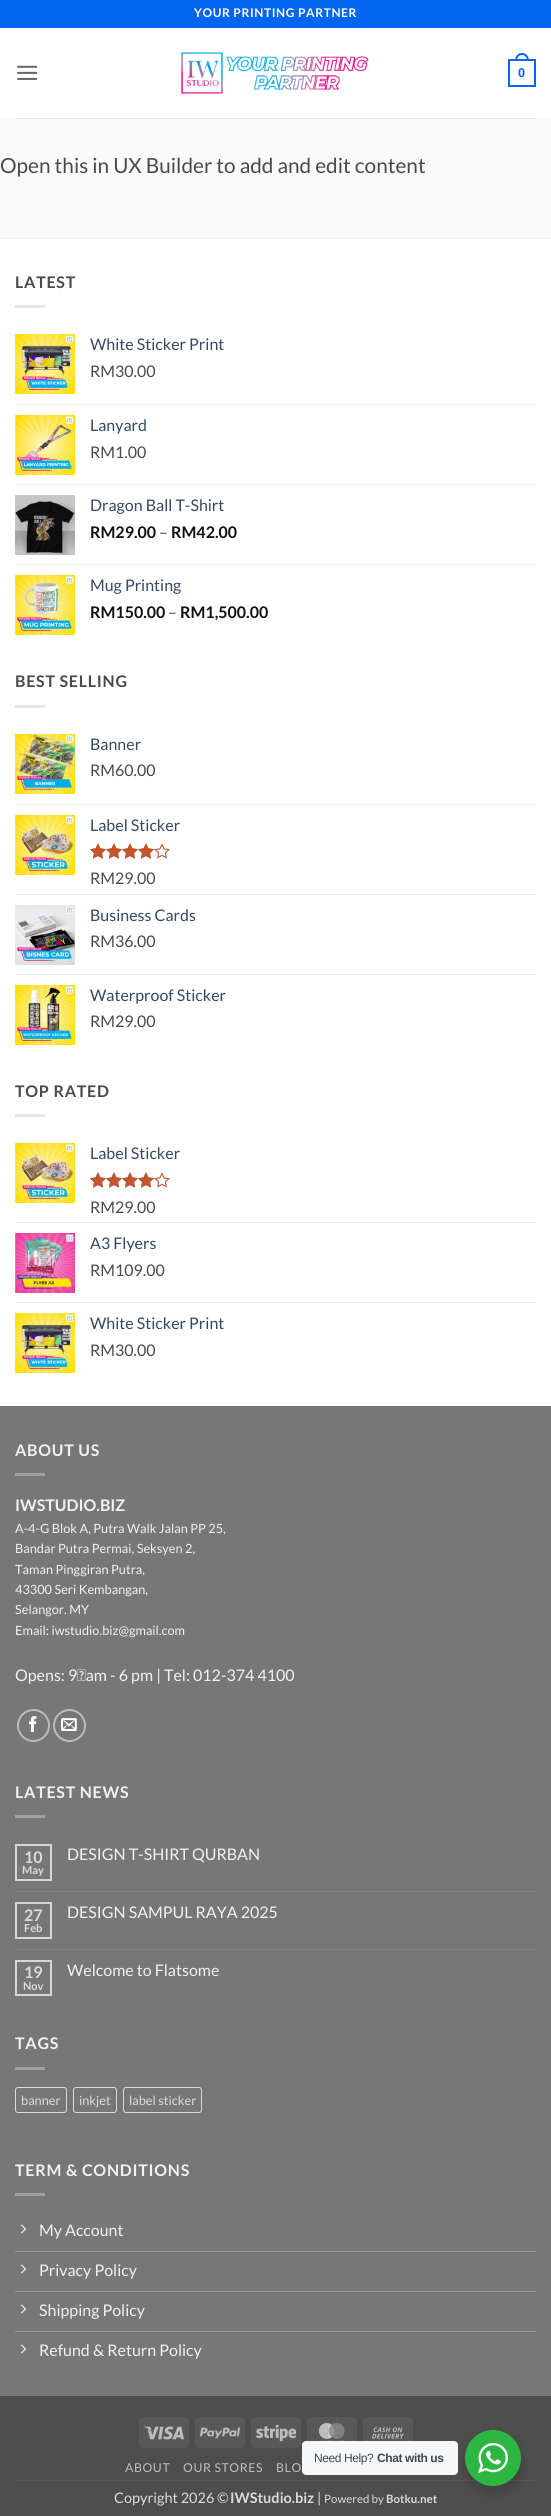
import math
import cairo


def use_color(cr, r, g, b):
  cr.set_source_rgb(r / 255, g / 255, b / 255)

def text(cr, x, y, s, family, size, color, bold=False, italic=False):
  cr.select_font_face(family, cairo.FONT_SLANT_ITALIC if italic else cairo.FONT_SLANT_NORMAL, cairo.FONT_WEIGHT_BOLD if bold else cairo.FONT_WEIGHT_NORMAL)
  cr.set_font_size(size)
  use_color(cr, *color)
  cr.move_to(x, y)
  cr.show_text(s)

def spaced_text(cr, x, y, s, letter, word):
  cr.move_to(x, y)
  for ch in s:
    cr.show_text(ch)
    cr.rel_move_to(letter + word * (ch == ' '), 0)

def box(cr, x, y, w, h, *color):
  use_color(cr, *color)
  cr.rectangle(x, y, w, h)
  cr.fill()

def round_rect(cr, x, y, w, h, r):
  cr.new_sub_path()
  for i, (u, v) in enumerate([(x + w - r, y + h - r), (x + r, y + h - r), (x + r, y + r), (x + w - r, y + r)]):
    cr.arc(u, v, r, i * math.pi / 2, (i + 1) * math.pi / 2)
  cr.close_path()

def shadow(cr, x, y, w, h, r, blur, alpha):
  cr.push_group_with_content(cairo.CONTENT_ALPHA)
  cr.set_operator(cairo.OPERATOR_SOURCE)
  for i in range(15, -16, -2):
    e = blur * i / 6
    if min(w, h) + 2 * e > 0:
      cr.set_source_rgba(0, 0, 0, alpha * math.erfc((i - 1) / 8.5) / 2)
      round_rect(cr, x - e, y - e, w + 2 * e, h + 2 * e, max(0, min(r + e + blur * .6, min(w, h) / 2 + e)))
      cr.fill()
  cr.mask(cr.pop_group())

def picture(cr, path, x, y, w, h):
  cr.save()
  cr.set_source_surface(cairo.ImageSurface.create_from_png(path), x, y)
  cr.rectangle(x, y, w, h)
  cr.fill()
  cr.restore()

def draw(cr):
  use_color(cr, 255, 255, 255)
  cr.paint()
  box(cr, 0, 0, 551, 28, 3, 102, 241)
  picture(cr, "img_01.png", 17, 65, 21, 15)
  picture(cr, "img_02.png", 181, 52, 188, 42)
  cr.rectangle(509, 60, 26, 26)
  cr.stroke()
  cr.set_fill_rule(cairo.FILL_RULE_EVEN_ODD)
  cr.new_path()
  cr.move_to(522, 53)
  cr.curve_to(526.5, 53, 529, 57, 529, 61)
  cr.line_to(515, 61)
  cr.curve_to(515, 57, 517.5, 53, 522, 53)
  cr.close_path()
  cr.move_to(522, 55)
  cr.curve_to(525.5, 55, 527, 58, 527, 61)
  cr.line_to(517, 61)
  cr.curve_to(517, 58, 518.5, 55, 522, 55)
  cr.close_path()
  cr.fill()
  box(cr, 0, 118, 551, 120, 250, 250, 250)
  box(cr, 15, 118, 521, 1, 232, 232, 232)
  box(cr, 0, 238, 551, 1, 242, 242, 242)
  box(cr, 15, 305, 30, 3, 230, 230, 230)
  picture(cr, "img_03.png", 15, 334, 60, 60)
  box(cr, 15, 404, 521, 1, 236, 236, 236)
  picture(cr, "img_04.png", 15, 415, 60, 60)
  box(cr, 15, 484, 521, 1, 236, 236, 236)
  picture(cr, "img_05.png", 15, 495, 60, 60)
  box(cr, 15, 564, 521, 1, 236, 236, 236)
  picture(cr, "img_06.png", 15, 575, 60, 60)
  box(cr, 15, 705, 30, 3, 230, 230, 230)
  picture(cr, "img_07.png", 15, 734, 60, 60)
  box(cr, 15, 804, 521, 1, 236, 236, 236)
  picture(cr, "img_08.png", 15, 815, 60, 60)
  picture(cr, "img_09.png", 90, 843, 80, 16)
  picture(cr, "img_10.png", 90, 843, 65, 16)
  box(cr, 15, 894, 521, 1, 236, 236, 236)
  picture(cr, "img_11.png", 15, 905, 60, 60)
  box(cr, 15, 974, 521, 1, 236, 236, 236)
  picture(cr, "img_12.png", 15, 985, 60, 60)
  box(cr, 15, 1114, 30, 3, 230, 230, 230)
  picture(cr, "img_13.png", 15, 1143, 60, 60)
  picture(cr, "img_09.png", 90, 1172, 80, 16)
  picture(cr, "img_10.png", 90, 1172, 65, 16)
  box(cr, 15, 1222, 521, 1, 236, 236, 236)
  picture(cr, "img_14.png", 15, 1233, 60, 60)
  box(cr, 15, 1302, 521, 1, 236, 236, 236)
  picture(cr, "img_03.png", 15, 1313, 60, 60)
  box(cr, 0, 1407, 551, 989, 119, 119, 119)
  box(cr, 0, 1406, 551, 1, 113, 113, 113)
  box(cr, 15, 1473, 30, 3, 160, 160, 160)
  cr.arc(33.5, 1725.5, 15.5, 0, 2 * math.pi)
  use_color(cr, 187, 187, 187)
  cr.stroke()
  picture(cr, "img_15.png", 28, 1716, 9, 16)
  cr.arc(69.5, 1725.5, 15.5, 0, 2 * math.pi)
  cr.stroke()
  picture(cr, "img_16.png", 61, 1718, 16, 13)
  box(cr, 15, 1815, 30, 3, 160, 160, 160)
  cr.rectangle(16, 1845, 35, 35)
  use_color(cr, 214, 214, 214)
  cr.stroke()
  box(cr, 15, 1891, 521, 1, 130, 130, 130)
  cr.rectangle(16, 1903, 35, 35)
  use_color(cr, 214, 214, 214)
  cr.stroke()
  box(cr, 15, 1949, 521, 1, 130, 130, 130)
  cr.rectangle(16, 1961, 35, 34)
  use_color(cr, 214, 214, 214)
  cr.stroke()
  box(cr, 15, 2067, 30, 3, 160, 160, 160)
  round_rect(cr, 15.5, 2087.5, 51, 25, 2.5)
  use_color(cr, 217, 217, 217)
  cr.set_line_width(1)
  cr.stroke()
  round_rect(cr, 73.5, 2087.5, 43, 25, 2.5)
  cr.stroke()
  round_rect(cr, 123.5, 2087.5, 78, 25, 2.5)
  cr.stroke()
  box(cr, 15, 2193, 30, 3, 160, 160, 160)
  box(cr, 15, 2251, 521, 1, 146, 146, 146)
  picture(cr, "img_17.png", 21, 2224, 6, 10)
  box(cr, 15, 2291, 521, 1, 146, 146, 146)
  picture(cr, "img_17.png", 21, 2264, 6, 10)
  box(cr, 15, 2331, 521, 1, 146, 146, 146)
  picture(cr, "img_17.png", 21, 2304, 6, 10)
  picture(cr, "img_17.png", 21, 2344, 6, 10)
  box(cr, 0, 2396, 551, 120, 77, 77, 77)
  use_color(cr, 88, 88, 88)
  round_rect(cr, 139, 2417, 50, 31, 5)
  cr.fill()
  picture(cr, "img_18.png", 144, 2426, 40, 14)
  round_rect(cr, 195, 2417, 50, 31, 5)
  cr.fill()
  picture(cr, "img_19.png", 200, 2427, 40, 12)
  round_rect(cr, 251, 2417, 50, 31, 5)
  cr.fill()
  picture(cr, "img_20.png", 256, 2424, 40, 18)
  round_rect(cr, 307, 2417, 50, 31, 5)
  cr.fill()
  picture(cr, "img_21.png", 318, 2423, 27, 18)
  round_rect(cr, 363, 2417, 50, 31, 5)
  cr.fill()
  picture(cr, "img_22.png", 372, 2427, 32, 12)
  box(cr, 15, 2480, 521, 1, 88, 88, 88)
  use_color(cr, 0, 0, 0)
  shadow(cr, 463, 2434, 60, 60, 30, 4, 0.14)
  use_color(cr, 245, 247, 249)
  round_rect(cr, 302, 2441, 156, 34, 4)
  cr.fill()
  use_color(cr, 45, 183, 66)
  cr.arc(493, 2458, 28, 0, 2 * math.pi)
  cr.fill()
  picture(cr, "img_23.png", 478, 2443, 30, 30)
  cr.select_font_face("Lato", cairo.FONT_SLANT_NORMAL, cairo.FONT_WEIGHT_BOLD)
  cr.set_font_size(12)
  use_color(cr, 255, 255, 255)
  spaced_text(cr, 194, 17, "YOUR PRINTING PARTNER", 0.6, 0)
  text(cr, 518, 77, "0", "Liberation Sans", 12.75, (3, 102, 241), bold=True)
  text(cr, 0, 173, "Open this in UX Builder to add and edit content", "Lato", 20.8, (74, 74, 74))
  cr.select_font_face("Lato", cairo.FONT_SLANT_NORMAL, cairo.FONT_WEIGHT_BOLD)
  cr.set_font_size(16)
  spaced_text(cr, 15, 288, "LATEST", 0.75, 0)
  text(cr, 90, 350, "White Sticker Print", "Lato", 16, (51, 72, 98))
  text(cr, 90, 377, "RM30.00", "Lato", 16, (74, 74, 74))
  text(cr, 90, 431, "Lanyard", "Lato", 16, (51, 72, 98))
  text(cr, 90, 458, "RM1.00", "Lato", 16, (74, 74, 74))
  text(cr, 90, 511, "Dragon Ball T-Shirt", "Lato", 16, (51, 72, 98))
  text(cr, 90, 538, "RM29.00", "Lato", 16, (17, 17, 17), bold=True)
  text(cr, 159, 538, "–", "Lato", 16, (74, 74, 74))
  text(cr, 171, 538, "RM42.00", "Lato", 16, (17, 17, 17), bold=True)
  text(cr, 90, 591, "Mug Printing", "Lato", 16, (51, 72, 98))
  text(cr, 90, 618, "RM150.00", "Lato", 16, (17, 17, 17), bold=True)
  text(cr, 168, 618, "–", "Lato", 16, (74, 74, 74))
  text(cr, 180, 618, "RM1,500.00", "Lato", 16, (17, 17, 17), bold=True)
  use_color(cr, 74, 74, 74)
  spaced_text(cr, 15, 687, "BEST SELLING", 0.75, 0)
  text(cr, 90, 750, "Banner", "Lato", 16, (51, 72, 98))
  text(cr, 90, 776, "RM60.00", "Lato", 16, (74, 74, 74))
  text(cr, 90, 831, "Label Sticker", "Lato", 16, (51, 72, 98))
  text(cr, 90, 884, "RM29.00", "Lato", 16, (74, 74, 74))
  text(cr, 90, 921, "Business Cards", "Lato", 16, (51, 72, 98))
  text(cr, 90, 947, "RM36.00", "Lato", 16, (74, 74, 74))
  text(cr, 90, 1001, "Waterproof Sticker", "Lato", 16, (51, 72, 98))
  text(cr, 90, 1027, "RM29.00", "Lato", 16, (74, 74, 74))
  cr.select_font_face("Lato", cairo.FONT_SLANT_NORMAL, cairo.FONT_WEIGHT_BOLD)
  spaced_text(cr, 15, 1097, "TOP RATED", 0.75, 0)
  text(cr, 90, 1159, "Label Sticker", "Lato", 16, (51, 72, 98))
  text(cr, 90, 1213, "RM29.00", "Lato", 16, (74, 74, 74))
  text(cr, 90, 1249, "A3 Flyers", "Lato", 16, (51, 72, 98))
  text(cr, 90, 1276, "RM109.00", "Lato", 16, (74, 74, 74))
  text(cr, 90, 1329, "White Sticker Print", "Lato", 16, (51, 72, 98))
  text(cr, 90, 1356, "RM30.00", "Lato", 16, (74, 74, 74))
  cr.select_font_face("Lato", cairo.FONT_SLANT_NORMAL, cairo.FONT_WEIGHT_BOLD)
  use_color(cr, 241, 241, 241)
  spaced_text(cr, 15, 1456, "ABOUT US", 0.75, 0)
  text(cr, 15, 1511, "IWSTUDIO.BIZ", "Lato", 16, (241, 241, 241), bold=True)
  text(cr, 15, 1533, "A-4-G Blok A, Putra Walk Jalan PP 25,", "Lato", 12.75, (241, 241, 241))
  text(cr, 15, 1553, "Bandar Putra Permai, Seksyen 2,", "Lato", 12.75, (241, 241, 241))
  text(cr, 15, 1574, "Taman Pinggiran Putra,", "Lato", 12.75, (241, 241, 241))
  text(cr, 15, 1594, "43300 Seri Kembangan,", "Lato", 12.75, (241, 241, 241))
  text(cr, 15, 1614, "Selangor. MY", "Lato", 12.75, (241, 241, 241))
  text(cr, 15, 1635, "Email: iwstudio.biz@gmail.com", "Lato", 12.75, (241, 241, 241))
  text(cr, 15, 1681, "Opens: 9 am - 6 pm | Tel: 012-374 4100", "Lato", 16, (241, 241, 241))
  cr.select_font_face("Lato", cairo.FONT_SLANT_NORMAL, cairo.FONT_WEIGHT_BOLD)
  spaced_text(cr, 15, 1798, "LATEST NEWS", 0.75, 0)
  text(cr, 24, 1863, "10", "Lato", 16, (219, 219, 219), bold=True)
  text(cr, 22, 1874, "May", "Lato", 11, (219, 219, 219), bold=True)
  text(cr, 67, 1860, "DESIGN T-SHIRT QURBAN", "Lato", 16, (241, 241, 241))
  text(cr, 24, 1921, "27", "Lato", 16, (219, 219, 219), bold=True)
  text(cr, 24, 1932, "Feb", "Lato", 11, (219, 219, 219), bold=True)
  text(cr, 67, 1918, "DESIGN SAMPUL RAYA 2025", "Lato", 16, (241, 241, 241))
  text(cr, 24, 1978, "19", "Lato", 16, (219, 219, 219), bold=True)
  text(cr, 23, 1990, "Nov", "Lato", 11, (219, 219, 219), bold=True)
  text(cr, 67, 1976, "Welcome to Flatsome", "Lato", 16, (241, 241, 241))
  cr.select_font_face("Lato", cairo.FONT_SLANT_NORMAL, cairo.FONT_WEIGHT_BOLD)
  spaced_text(cr, 15, 2049, "TAGS", 0.75, 0)
  text(cr, 21, 2105, "banner", "Lato", 12.75, (219, 219, 219))
  text(cr, 79, 2105, "inkjet", "Lato", 12.75, (219, 219, 219))
  text(cr, 129, 2105, "label sticker", "Lato", 12.75, (219, 219, 219))
  cr.select_font_face("Lato", cairo.FONT_SLANT_NORMAL, cairo.FONT_WEIGHT_BOLD)
  cr.set_font_size(16)
  use_color(cr, 241, 241, 241)
  spaced_text(cr, 15, 2176, "TERM & CONDITIONS", 0.75, 0)
  text(cr, 39, 2236, "My Account", "Lato", 16, (241, 241, 241))
  text(cr, 39, 2276, "Privacy Policy", "Lato", 16, (241, 241, 241))
  text(cr, 39, 2316, "Shipping Policy", "Lato", 16, (241, 241, 241))
  text(cr, 39, 2356, "Refund & Return Policy", "Lato", 16, (241, 241, 241))
  cr.set_font_size(12.25)
  use_color(cr, 191, 191, 191)
  spaced_text(cr, 125, 2472, "ABOUT", 0.6, 0)
  spaced_text(cr, 183, 2472, "OUR STORES", 0.6, 0)
  spaced_text(cr, 276, 2472, "BLO", 0.6, 0)
  text(cr, 114, 2503, "Copyright 2026 ©", "Lato", 14.5, (219, 219, 219))
  text(cr, 230, 2503, "IWStudio.biz", "Lato", 14.5, (219, 219, 219), bold=True)
  text(cr, 317, 2503, "|", "Lato", 14.5, (219, 219, 219))
  text(cr, 324, 2503, "Powered by", "Lato", 11.5, (219, 219, 219))
  text(cr, 386, 2503, "Botku.net", "Lato", 11.5, (219, 219, 219), bold=True)
  cr.select_font_face("Liberation Sans")
  cr.set_font_size(12)
  use_color(cr, 67, 71, 78)
  spaced_text(cr, 314, 2462, "Need Help?", -0.4, 0)
  cr.select_font_face("Liberation Sans", cairo.FONT_SLANT_NORMAL, cairo.FONT_WEIGHT_BOLD)
  spaced_text(cr, 377, 2462, "Chat with us", -0.4, 0)


surface = cairo.ImageSurface(cairo.FORMAT_RGB24, 551, 2516)
cr = cairo.Context(surface)
options = cairo.FontOptions()
options.set_hint_metrics(cairo.HINT_METRICS_OFF)
options.set_hint_style(cairo.HINT_STYLE_NONE)
cr.set_font_options(options)
cr.set_miter_limit(4)
draw(cr)
surface.write_to_png("out.png")
